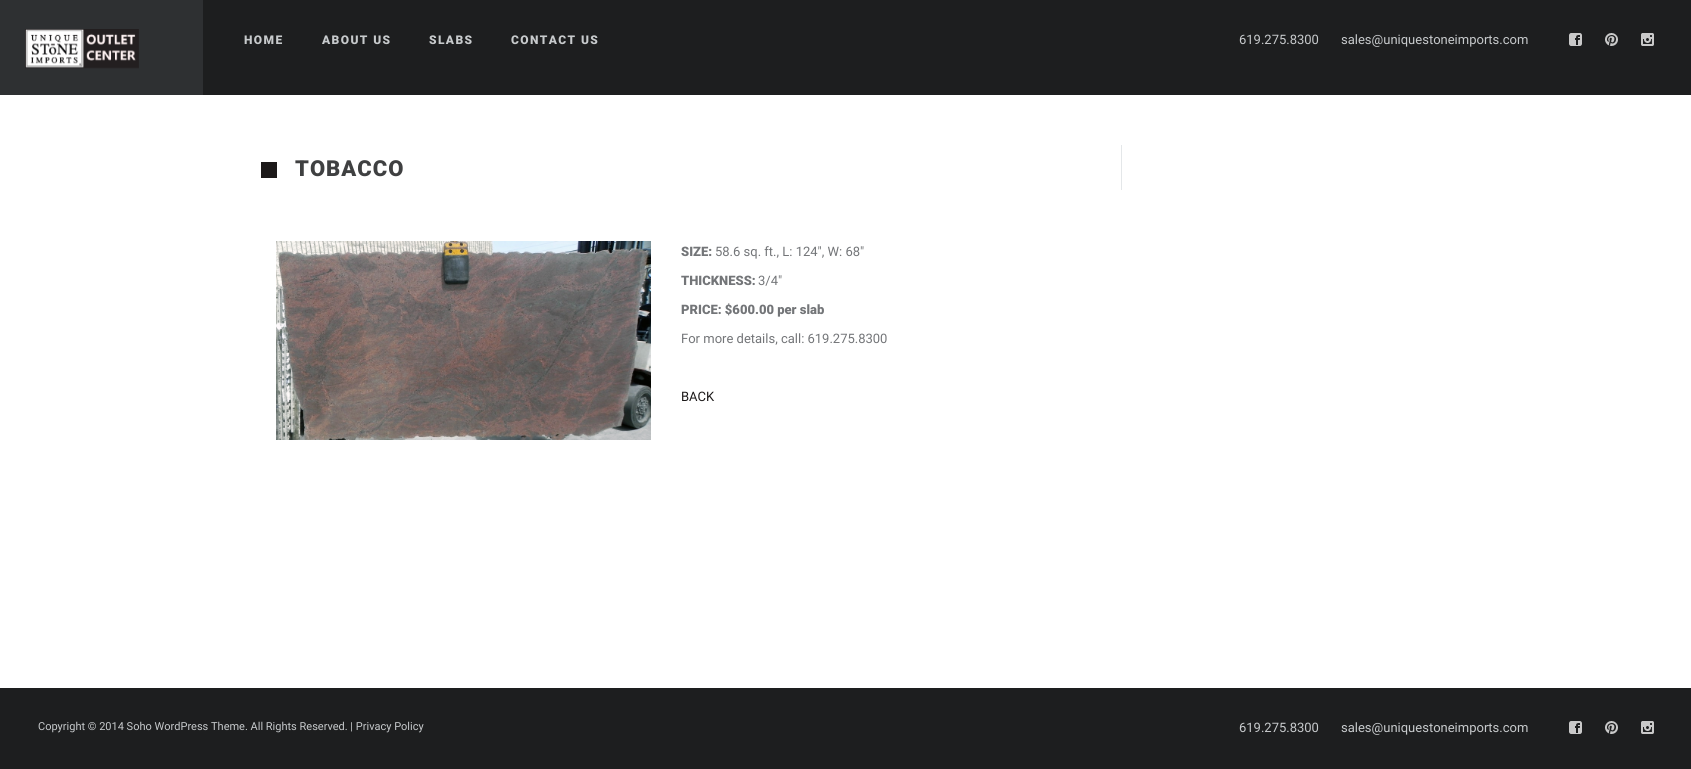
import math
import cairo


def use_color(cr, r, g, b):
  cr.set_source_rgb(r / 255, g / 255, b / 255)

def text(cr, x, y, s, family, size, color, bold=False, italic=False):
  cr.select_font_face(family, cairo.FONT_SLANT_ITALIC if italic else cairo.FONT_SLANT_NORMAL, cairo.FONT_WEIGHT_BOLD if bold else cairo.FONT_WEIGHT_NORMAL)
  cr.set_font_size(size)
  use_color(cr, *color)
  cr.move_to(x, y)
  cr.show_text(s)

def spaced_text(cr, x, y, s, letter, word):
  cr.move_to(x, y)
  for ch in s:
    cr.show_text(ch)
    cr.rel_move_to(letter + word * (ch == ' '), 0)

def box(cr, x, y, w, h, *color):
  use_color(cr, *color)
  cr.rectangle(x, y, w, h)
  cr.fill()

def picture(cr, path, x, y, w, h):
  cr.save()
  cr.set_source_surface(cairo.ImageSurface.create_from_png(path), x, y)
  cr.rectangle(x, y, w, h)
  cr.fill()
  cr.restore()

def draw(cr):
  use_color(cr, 255, 255, 255)
  cr.paint()
  box(cr, 203, 0, 1488, 95, 29, 30, 31)
  box(cr, 0, 0, 203, 95, 46, 48, 50)
  picture(cr, "img_01.png", 25, 29, 114, 40)
  picture(cr, "img_02.png", 1569, 33, 13, 13)
  picture(cr, "img_03.png", 1605, 33, 13, 13)
  picture(cr, "img_04.png", 1641, 33, 13, 13)
  box(cr, 261, 162, 16, 16, 28, 25, 25)
  picture(cr, "img_05.png", 276, 241, 375, 199)
  box(cr, 1121, 145, 1, 45, 228, 231, 233)
  box(cr, 0, 688, 1691, 81, 29, 30, 31)
  picture(cr, "img_02.png", 1569, 721, 13, 13)
  picture(cr, "img_03.png", 1605, 721, 13, 13)
  picture(cr, "img_04.png", 1641, 721, 13, 13)
  cr.select_font_face("Roboto Black")
  cr.set_font_size(12)
  use_color(cr, 199, 202, 204)
  spaced_text(cr, 244, 44, "HOME", 1.4, 0)
  spaced_text(cr, 322, 44, "ABOUT US", 1.4, 0)
  spaced_text(cr, 429, 44, "SLABS", 1.4, 0)
  spaced_text(cr, 511, 44, "CONTACT US", 1.4, 0)
  text(cr, 1239, 44, "619.275.8300", "Roboto", 13, (199, 202, 204))
  text(cr, 1341, 44, "sales@uniquestoneimports.com", "Roboto", 13, (199, 202, 204))
  cr.select_font_face("Roboto Black")
  cr.set_font_size(22)
  use_color(cr, 63, 64, 65)
  spaced_text(cr, 295, 176, "TOBACCO", 1, 0)
  text(cr, 681, 256, "SIZE:", "Roboto Black", 13, (115, 117, 120))
  text(cr, 715, 256, "58.6 sq. ft., L: 124″, W: 68″", "Roboto", 13, (115, 117, 120))
  text(cr, 681, 285, "THICKNESS:", "Roboto Black", 13, (115, 117, 120))
  text(cr, 758, 285, "3/4″", "Roboto", 13, (115, 117, 120))
  text(cr, 681, 314, "PRICE: $600.00 per slab", "Roboto Black", 13, (115, 117, 120))
  text(cr, 681, 343, "For more details, call: 619.275.8300", "Roboto", 13, (115, 117, 120))
  text(cr, 681, 401, "BACK", "Roboto", 13, (28, 25, 25))
  text(cr, 38, 730, "Copyright © 2014 Soho WordPress Theme. All Rights Reserved. | Privacy Policy", "Roboto", 11, (199, 202, 204))
  text(cr, 1239, 732, "619.275.8300", "Roboto", 13, (199, 202, 204))
  text(cr, 1341, 732, "sales@uniquestoneimports.com", "Roboto", 13, (199, 202, 204))


surface = cairo.ImageSurface(cairo.FORMAT_RGB24, 1691, 769)
cr = cairo.Context(surface)
options = cairo.FontOptions()
options.set_hint_metrics(cairo.HINT_METRICS_OFF)
options.set_hint_style(cairo.HINT_STYLE_NONE)
cr.set_font_options(options)
cr.set_miter_limit(4)
draw(cr)
surface.write_to_png("out.png")
